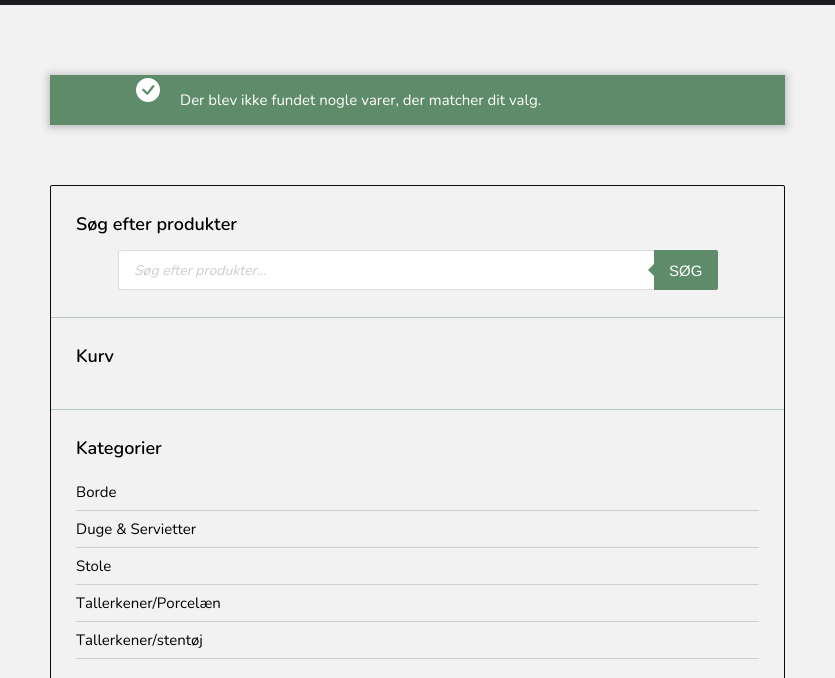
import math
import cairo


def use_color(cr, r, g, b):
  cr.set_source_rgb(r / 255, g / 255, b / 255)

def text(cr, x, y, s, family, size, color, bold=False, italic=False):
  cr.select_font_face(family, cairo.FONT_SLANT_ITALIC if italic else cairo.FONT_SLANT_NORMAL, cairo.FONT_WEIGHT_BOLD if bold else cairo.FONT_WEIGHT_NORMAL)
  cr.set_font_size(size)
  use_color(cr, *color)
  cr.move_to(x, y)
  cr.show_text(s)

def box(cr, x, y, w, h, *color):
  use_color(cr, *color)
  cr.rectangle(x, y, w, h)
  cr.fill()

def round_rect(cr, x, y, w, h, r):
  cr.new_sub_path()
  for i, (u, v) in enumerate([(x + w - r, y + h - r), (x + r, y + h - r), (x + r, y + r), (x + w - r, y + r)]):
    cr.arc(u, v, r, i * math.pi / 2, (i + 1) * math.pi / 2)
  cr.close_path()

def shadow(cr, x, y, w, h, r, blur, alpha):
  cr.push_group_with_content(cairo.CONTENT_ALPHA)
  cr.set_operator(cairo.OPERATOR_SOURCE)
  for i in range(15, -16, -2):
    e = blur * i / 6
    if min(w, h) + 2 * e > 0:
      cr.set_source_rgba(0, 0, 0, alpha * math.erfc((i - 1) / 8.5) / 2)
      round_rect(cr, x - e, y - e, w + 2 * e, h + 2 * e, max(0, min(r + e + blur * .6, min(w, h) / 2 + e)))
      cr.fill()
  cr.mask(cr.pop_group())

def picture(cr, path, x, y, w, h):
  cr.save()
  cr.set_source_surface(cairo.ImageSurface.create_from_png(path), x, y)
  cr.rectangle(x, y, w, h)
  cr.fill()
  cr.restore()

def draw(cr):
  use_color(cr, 242, 242, 242)
  cr.paint()
  box(cr, 0, 0, 835, 5, 26, 28, 32)
  use_color(cr, 0, 0, 0)
  shadow(cr, 50, 76, 735, 50, 0, 5, 0.3)
  box(cr, 50, 75, 735, 50, 94, 140, 106)
  picture(cr, "img_01.png", 136, 78, 24, 24)
  round_rect(cr, 50.5, 185.5, 734, 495, 1.5)
  use_color(cr, 12, 12, 12)
  cr.set_line_width(1)
  cr.stroke()
  use_color(cr, 255, 255, 255)
  round_rect(cr, 118.5, 250.5, 599, 39, 2.5)
  cr.fill_preserve()
  use_color(cr, 221, 221, 221)
  cr.stroke()
  use_color(cr, 94, 140, 106)
  cr.new_path()
  cr.move_to(654, 250)
  cr.line_to(716, 250)
  cr.curve_to(717, 250, 718, 251, 718, 252)
  cr.line_to(718, 288)
  cr.curve_to(718, 289, 717, 290, 716, 290)
  cr.line_to(654, 290)
  cr.close_path()
  cr.fill()
  cr.new_path()
  cr.move_to(656, 262)
  cr.line_to(656, 278)
  cr.line_to(648, 270)
  cr.close_path()
  cr.fill()
  box(cr, 51, 317, 733, 1, 183, 201, 188)
  box(cr, 51, 409, 733, 1, 183, 201, 188)
  box(cr, 76, 510, 683, 1, 206, 206, 206)
  box(cr, 76, 547, 683, 1, 206, 206, 206)
  box(cr, 76, 584, 683, 1, 206, 206, 206)
  box(cr, 76, 621, 683, 1, 206, 206, 206)
  box(cr, 76, 658, 683, 1, 206, 206, 206)
  text(cr, 180, 105, "Der blev ikke fundet nogle varer, der matcher dit valg.", "Nunito ExtraLight", 15, (255, 255, 255))
  text(cr, 76, 230, "Søg efter produkter", "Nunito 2 ExtraLight", 18, (0, 0, 0))
  text(cr, 134, 275, "Søg efter produkter...", "Nunito ExtraLight", 14, (204, 204, 204), italic=True)
  text(cr, 669, 276, "SØG", "Liberation Sans", 15, (255, 255, 255))
  text(cr, 76, 362, "Kurv", "Nunito 2 ExtraLight", 18, (0, 0, 0))
  text(cr, 76, 454, "Kategorier", "Nunito 2 ExtraLight", 18, (0, 0, 0))
  text(cr, 76, 497, "Borde", "Nunito ExtraLight", 15, (0, 0, 0))
  text(cr, 76, 534, "Duge & Servietter", "Nunito ExtraLight", 15, (0, 0, 0))
  text(cr, 76, 571, "Stole", "Nunito ExtraLight", 15, (0, 0, 0))
  text(cr, 76, 608, "Tallerkener/Porcelæn", "Nunito ExtraLight", 15, (0, 0, 0))
  text(cr, 76, 645, "Tallerkener/stentøj", "Nunito ExtraLight", 15, (0, 0, 0))


surface = cairo.ImageSurface(cairo.FORMAT_RGB24, 835, 678)
cr = cairo.Context(surface)
options = cairo.FontOptions()
options.set_hint_metrics(cairo.HINT_METRICS_OFF)
options.set_hint_style(cairo.HINT_STYLE_NONE)
cr.set_font_options(options)
cr.set_miter_limit(4)
draw(cr)
surface.write_to_png("out.png")
